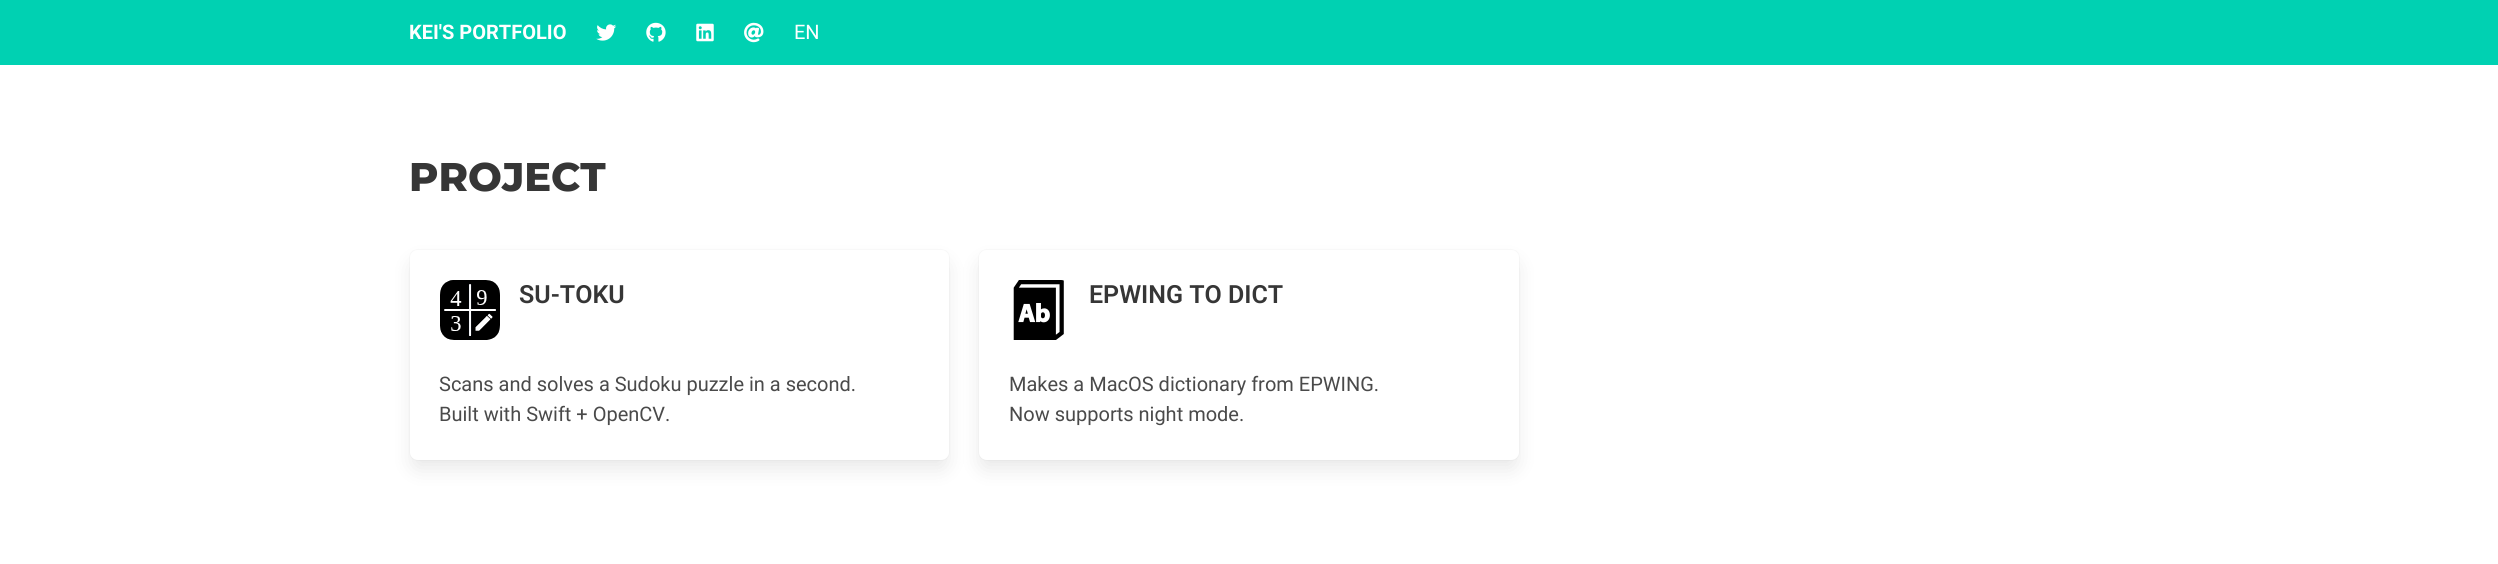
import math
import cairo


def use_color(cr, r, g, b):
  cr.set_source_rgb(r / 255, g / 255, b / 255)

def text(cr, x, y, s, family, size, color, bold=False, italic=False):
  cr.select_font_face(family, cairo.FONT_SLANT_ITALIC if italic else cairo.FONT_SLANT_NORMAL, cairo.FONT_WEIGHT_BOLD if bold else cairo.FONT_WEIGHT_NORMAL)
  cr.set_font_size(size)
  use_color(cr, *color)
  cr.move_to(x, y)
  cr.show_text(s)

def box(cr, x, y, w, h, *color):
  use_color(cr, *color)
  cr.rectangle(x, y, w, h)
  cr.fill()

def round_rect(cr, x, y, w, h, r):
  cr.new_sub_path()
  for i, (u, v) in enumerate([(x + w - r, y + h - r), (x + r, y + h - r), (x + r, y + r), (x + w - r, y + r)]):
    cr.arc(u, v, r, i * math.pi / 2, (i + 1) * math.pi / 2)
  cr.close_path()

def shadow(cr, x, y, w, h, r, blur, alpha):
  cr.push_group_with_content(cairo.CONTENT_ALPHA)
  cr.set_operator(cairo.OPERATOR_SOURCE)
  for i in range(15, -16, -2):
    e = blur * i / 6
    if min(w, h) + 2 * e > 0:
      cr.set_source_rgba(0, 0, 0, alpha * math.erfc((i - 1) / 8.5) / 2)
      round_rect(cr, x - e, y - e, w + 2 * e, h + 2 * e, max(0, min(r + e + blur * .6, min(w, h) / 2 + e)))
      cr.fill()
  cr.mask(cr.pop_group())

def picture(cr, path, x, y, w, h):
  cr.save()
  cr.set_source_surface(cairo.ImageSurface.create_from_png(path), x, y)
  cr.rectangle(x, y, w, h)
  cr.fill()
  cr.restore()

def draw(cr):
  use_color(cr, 255, 255, 255)
  cr.paint()
  box(cr, 0, 0, 2498, 65, 0, 209, 178)
  picture(cr, "img_01.png", 596, 24, 21, 17)
  picture(cr, "img_02.png", 646, 22, 20, 20)
  picture(cr, "img_03.png", 696, 23, 18, 19)
  picture(cr, "img_04.png", 744, 22, 20, 21)
  round_rect(cr, 409.5, 249.5, 540, 211, 8.5)
  use_color(cr, 250, 250, 250)
  cr.set_line_width(1)
  cr.stroke()
  use_color(cr, 10, 10, 10)
  shadow(cr, 413, 263, 533, 205, 5, 10, 0.1)
  use_color(cr, 255, 255, 255)
  round_rect(cr, 410, 250, 539, 210, 8)
  cr.fill()
  picture(cr, "img_05.png", 440, 280, 60, 60)
  round_rect(cr, 978.5, 249.5, 541, 211, 8.5)
  use_color(cr, 250, 250, 250)
  cr.stroke()
  use_color(cr, 10, 10, 10)
  shadow(cr, 981, 263, 535, 205, 5, 10, 0.1)
  use_color(cr, 255, 255, 255)
  round_rect(cr, 979, 250, 540, 210, 8)
  cr.fill()
  picture(cr, "img_06.png", 1013, 280, 51, 60)
  text(cr, 409, 39, "KEI'S PORTFOLIO", "Roboto", 20, (255, 255, 255), bold=True)
  text(cr, 794, 39, "EN", "Roboto", 20, (255, 255, 255))
  text(cr, 409, 191, "PROJECT", "Montserrat Thin", 40, (54, 54, 54))
  text(cr, 519, 303, "SU-TOKU", "Roboto SemiBold", 25, (54, 54, 54))
  text(cr, 439, 391, "Scans and solves a Sudoku puzzle in a second.", "Roboto", 20, (74, 74, 74))
  text(cr, 439, 421, "Built with Swift + OpenCV.", "Roboto", 20, (74, 74, 74))
  text(cr, 1089, 303, "EPWING TO DICT", "Roboto SemiBold", 25, (54, 54, 54))
  text(cr, 1009, 391, "Makes a MacOS dictionary from EPWING.", "Roboto", 20, (74, 74, 74))
  text(cr, 1009, 421, "Now supports night mode.", "Roboto", 20, (74, 74, 74))


surface = cairo.ImageSurface(cairo.FORMAT_RGB24, 2498, 564)
cr = cairo.Context(surface)
options = cairo.FontOptions()
options.set_hint_metrics(cairo.HINT_METRICS_OFF)
options.set_hint_style(cairo.HINT_STYLE_NONE)
cr.set_font_options(options)
cr.set_miter_limit(4)
draw(cr)
surface.write_to_png("out.png")
